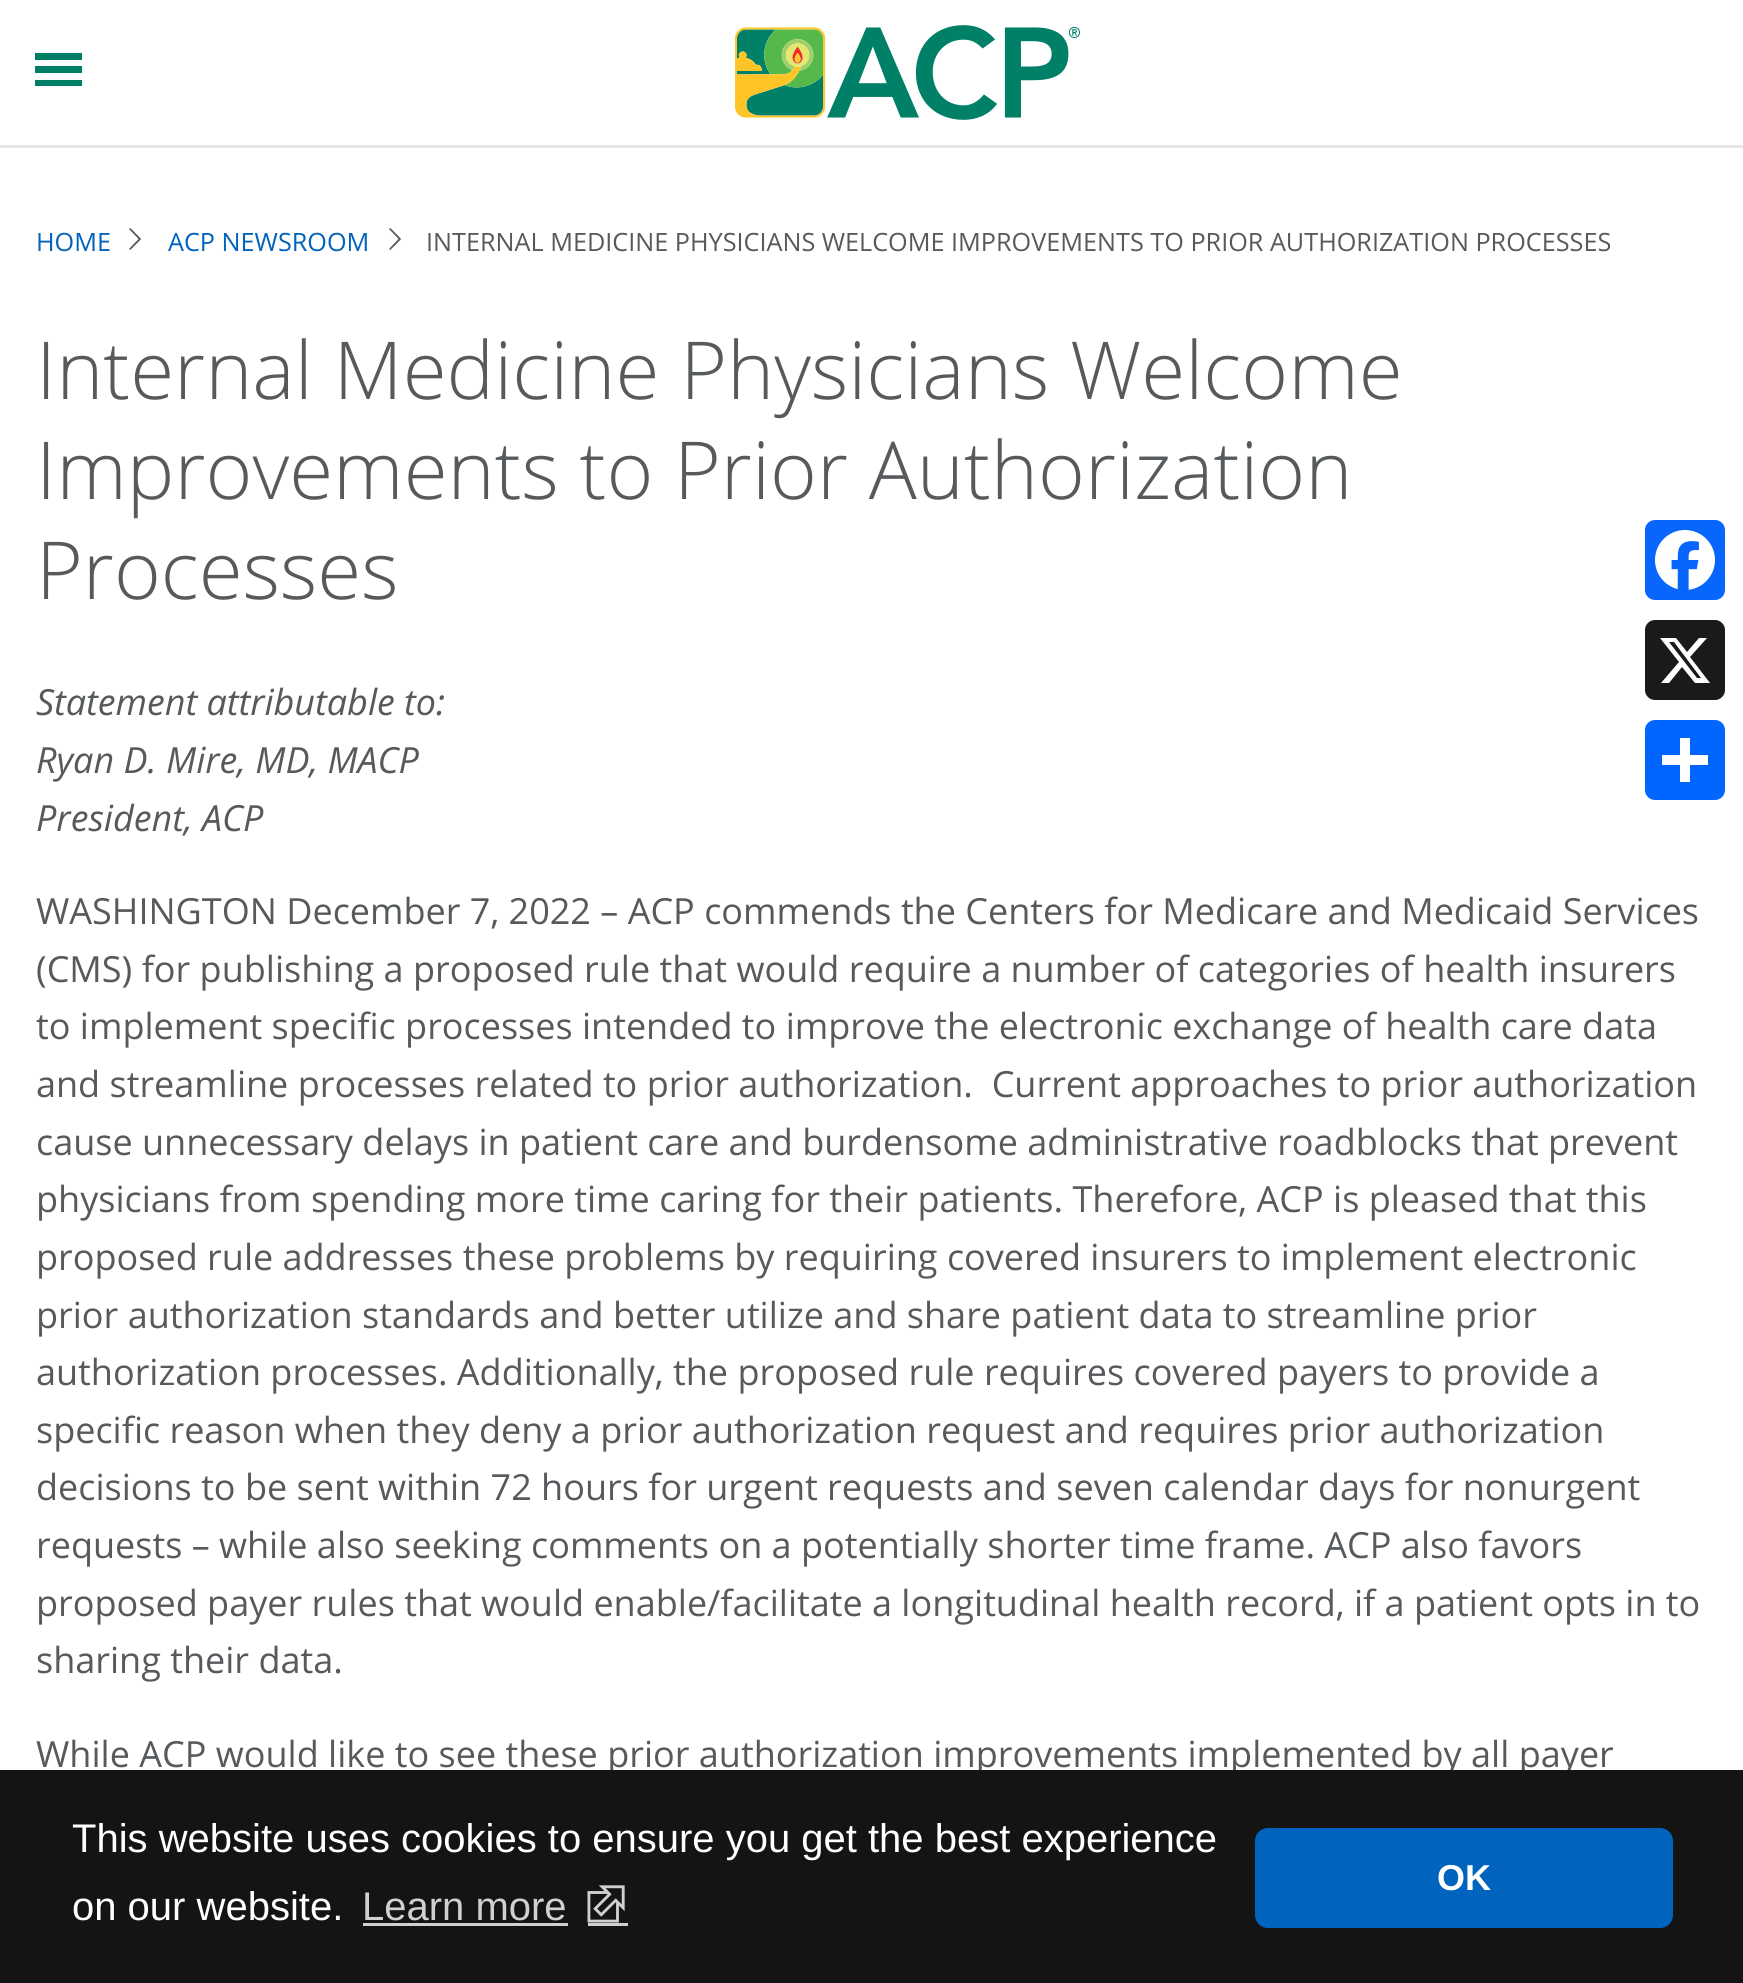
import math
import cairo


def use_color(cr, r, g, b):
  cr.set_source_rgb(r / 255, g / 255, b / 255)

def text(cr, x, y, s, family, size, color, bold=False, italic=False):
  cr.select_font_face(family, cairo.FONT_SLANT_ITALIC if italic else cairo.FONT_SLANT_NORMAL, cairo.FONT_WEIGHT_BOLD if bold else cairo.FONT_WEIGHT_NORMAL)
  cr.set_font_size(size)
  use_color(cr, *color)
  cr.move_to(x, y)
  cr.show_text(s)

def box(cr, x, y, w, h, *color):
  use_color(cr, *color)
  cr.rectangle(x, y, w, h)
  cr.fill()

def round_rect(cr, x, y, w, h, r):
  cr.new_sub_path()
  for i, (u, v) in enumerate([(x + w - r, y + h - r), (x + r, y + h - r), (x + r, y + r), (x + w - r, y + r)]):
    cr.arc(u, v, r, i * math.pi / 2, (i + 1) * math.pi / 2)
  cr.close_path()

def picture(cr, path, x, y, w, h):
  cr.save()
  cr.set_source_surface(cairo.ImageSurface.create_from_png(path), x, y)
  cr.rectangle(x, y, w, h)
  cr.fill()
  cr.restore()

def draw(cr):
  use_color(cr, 255, 255, 255)
  cr.paint()
  box(cr, 0, 145, 1743, 3, 229, 229, 229)
  use_color(cr, 0, 126, 102)
  cr.new_path()
  cr.move_to(35, 66)
  cr.line_to(35, 73)
  cr.line_to(82, 73)
  cr.line_to(82, 66)
  cr.close_path()
  cr.move_to(35, 53)
  cr.line_to(35, 60)
  cr.line_to(82, 60)
  cr.line_to(82, 53)
  cr.close_path()
  cr.move_to(35, 80)
  cr.line_to(35, 86)
  cr.line_to(82, 86)
  cr.line_to(82, 80)
  cr.close_path()
  cr.fill()
  picture(cr, "img_01.png", 735, 25, 345, 95)
  picture(cr, "img_02.png", 129, 228, 12, 22)
  picture(cr, "img_02.png", 389, 228, 12, 22)
  use_color(cr, 8, 102, 255)
  round_rect(cr, 1645, 520, 80, 80, 10)
  cr.fill()
  picture(cr, "img_03.png", 1655, 530, 60, 60)
  use_color(cr, 26, 26, 26)
  round_rect(cr, 1645, 620, 80, 80, 10)
  cr.fill()
  use_color(cr, 255, 255, 255)
  cr.new_path()
  cr.move_to(1699, 638)
  cr.line_to(1707, 638)
  cr.line_to(1690, 657)
  cr.line_to(1710, 683)
  cr.line_to(1695, 683)
  cr.line_to(1682, 667)
  cr.line_to(1669, 683)
  cr.line_to(1661, 683)
  cr.line_to(1679, 662)
  cr.line_to(1660, 638)
  cr.line_to(1676, 638)
  cr.line_to(1687, 652)
  cr.close_path()
  cr.move_to(1697, 678)
  cr.line_to(1701, 678)
  cr.line_to(1674, 642)
  cr.line_to(1669, 642)
  cr.close_path()
  cr.fill()
  use_color(cr, 1, 102, 255)
  round_rect(cr, 1645, 720, 80, 80, 10)
  cr.fill()
  box(cr, 1680, 738, 10, 44, 255, 255, 255)
  box(cr, 1662, 755, 46, 10, 255, 255, 255)
  text(cr, 36, 251, "HOME", "Open Sans", 25.2, (0, 99, 190))
  text(cr, 168, 251, "ACP NEWSROOM", "Open Sans", 25.2, (0, 99, 190))
  text(cr, 426, 251, "INTERNAL MEDICINE PHYSICIANS WELCOME IMPROVEMENTS TO PRIOR AUTHORIZATION PROCESSES", "Open Sans", 25.2, (87, 90, 93))
  text(cr, 36, 399, "Internal Medicine Physicians Welcome", "Open Sans Light", 80, (87, 90, 93))
  text(cr, 36, 499, "Improvements to Prior Authorization", "Open Sans Light", 80, (87, 90, 93))
  text(cr, 36, 599, "Processes", "Open Sans Light", 80, (87, 90, 93))
  text(cr, 36, 715, "Statement attributable to:", "Open Sans", 36, (87, 90, 93), italic=True)
  text(cr, 36, 773, "Ryan D. Mire, MD, MACP", "Open Sans", 36, (87, 90, 93), italic=True)
  text(cr, 36, 831, "President, ACP", "Open Sans", 36, (87, 90, 93), italic=True)
  text(cr, 36, 924, "WASHINGTON December 7, 2022 – ACP commends the Centers for Medicare and Medicaid Services", "Open Sans", 36, (87, 90, 93))
  text(cr, 36, 982, "(CMS) for publishing a proposed rule that would require a number of categories of health insurers", "Open Sans", 36, (87, 90, 93))
  text(cr, 36, 1039, "to implement specific processes intended to improve the electronic exchange of health care data", "Open Sans", 36, (87, 90, 93))
  text(cr, 36, 1097, "and streamline processes related to prior authorization.  Current approaches to prior authorization", "Open Sans", 36, (87, 90, 93))
  text(cr, 36, 1155, "cause unnecessary delays in patient care and burdensome administrative roadblocks that prevent", "Open Sans", 36, (87, 90, 93))
  text(cr, 36, 1212, "physicians from spending more time caring for their patients. Therefore, ACP is pleased that this", "Open Sans", 36, (87, 90, 93))
  text(cr, 36, 1270, "proposed rule addresses these problems by requiring covered insurers to implement electronic", "Open Sans", 36, (87, 90, 93))
  text(cr, 36, 1328, "prior authorization standards and better utilize and share patient data to streamline prior", "Open Sans", 36, (87, 90, 93))
  text(cr, 36, 1385, "authorization processes. Additionally, the proposed rule requires covered payers to provide a", "Open Sans", 36, (87, 90, 93))
  text(cr, 36, 1443, "specific reason when they deny a prior authorization request and requires prior authorization", "Open Sans", 36, (87, 90, 93))
  text(cr, 36, 1500, "decisions to be sent within 72 hours for urgent requests and seven calendar days for nonurgent", "Open Sans", 36, (87, 90, 93))
  text(cr, 36, 1558, "requests – while also seeking comments on a potentially shorter time frame. ACP also favors", "Open Sans", 36, (87, 90, 93))
  text(cr, 36, 1616, "proposed payer rules that would enable/facilitate a longitudinal health record, if a patient opts in to", "Open Sans", 36, (87, 90, 93))
  text(cr, 36, 1673, "sharing their data.", "Open Sans", 36, (87, 90, 93))
  text(cr, 36, 1767, "While ACP would like to see these prior authorization improvements implemented by all payer", "Open Sans", 36, (87, 90, 93))
  box(cr, 0, 1770, 1743, 213, 20, 20, 20)
  text(cr, 72, 1852, "This website uses cookies to ensure you get the best experience", "Liberation Sans", 40, (255, 255, 255))
  text(cr, 72, 1920, "on our website.", "Liberation Sans", 40, (255, 255, 255))
  text(cr, 362, 1920, "Learn more", "Liberation Sans", 40, (208, 208, 208))
  box(cr, 363, 1923, 205, 3, 208, 208, 208)
  picture(cr, "img_04.png", 587, 1885, 38, 38)
  box(cr, 588, 1923, 40, 3, 208, 208, 208)
  use_color(cr, 0, 99, 190)
  round_rect(cr, 1255, 1828, 418, 100, 13)
  cr.fill()
  text(cr, 1437, 1890, "OK", "Liberation Sans", 36, (255, 255, 255), bold=True)


surface = cairo.ImageSurface(cairo.FORMAT_RGB24, 1743, 1983)
cr = cairo.Context(surface)
options = cairo.FontOptions()
options.set_hint_metrics(cairo.HINT_METRICS_OFF)
options.set_hint_style(cairo.HINT_STYLE_NONE)
cr.set_font_options(options)
cr.set_miter_limit(4)
draw(cr)
surface.write_to_png("out.png")
